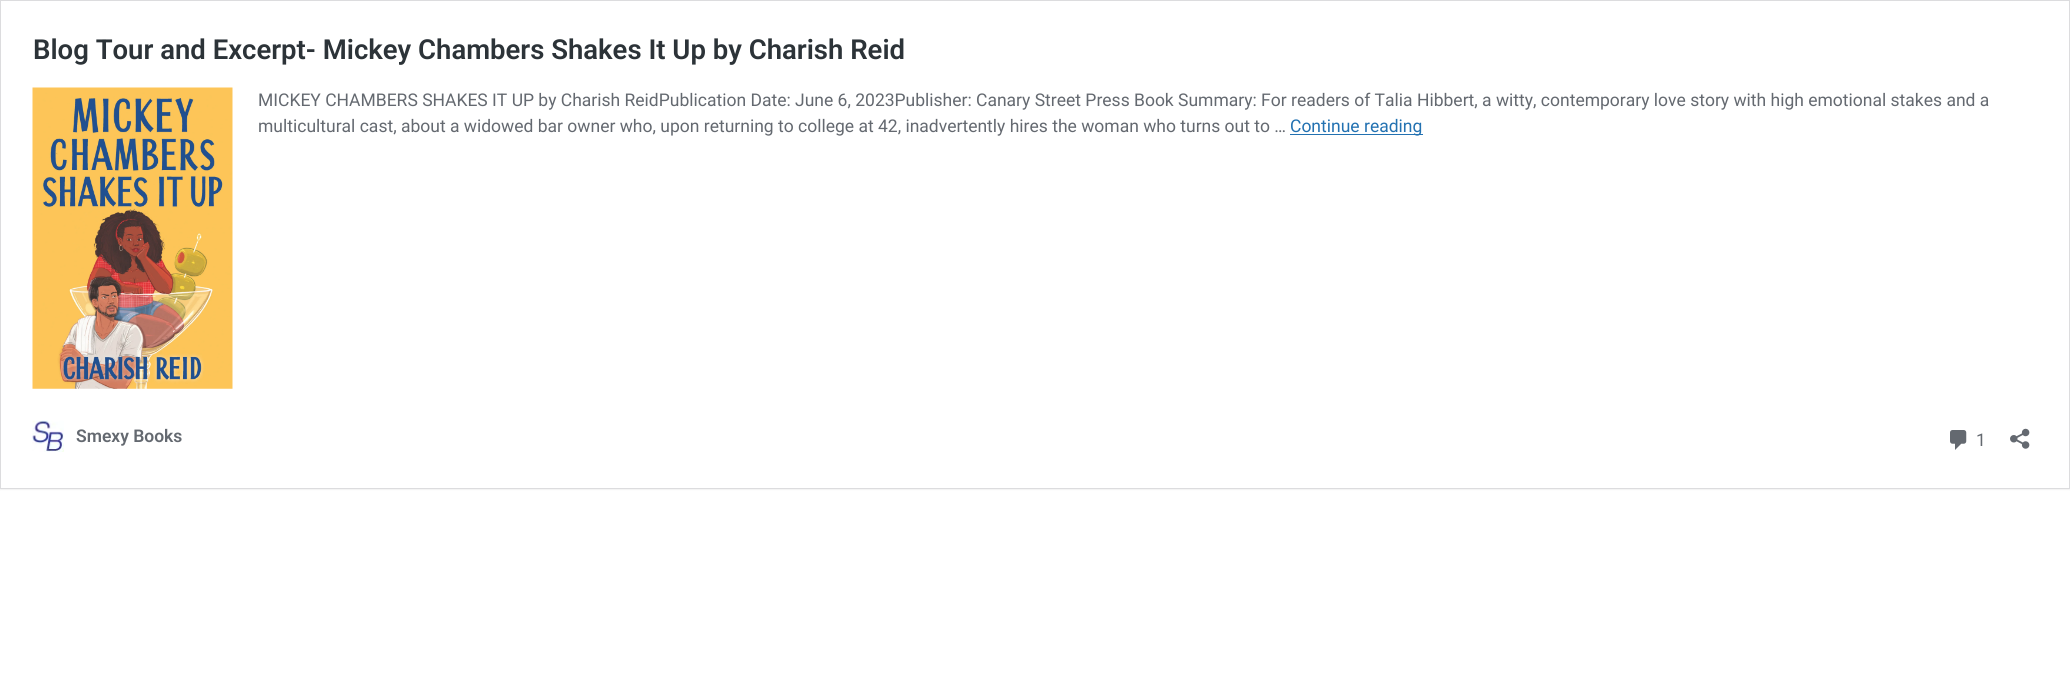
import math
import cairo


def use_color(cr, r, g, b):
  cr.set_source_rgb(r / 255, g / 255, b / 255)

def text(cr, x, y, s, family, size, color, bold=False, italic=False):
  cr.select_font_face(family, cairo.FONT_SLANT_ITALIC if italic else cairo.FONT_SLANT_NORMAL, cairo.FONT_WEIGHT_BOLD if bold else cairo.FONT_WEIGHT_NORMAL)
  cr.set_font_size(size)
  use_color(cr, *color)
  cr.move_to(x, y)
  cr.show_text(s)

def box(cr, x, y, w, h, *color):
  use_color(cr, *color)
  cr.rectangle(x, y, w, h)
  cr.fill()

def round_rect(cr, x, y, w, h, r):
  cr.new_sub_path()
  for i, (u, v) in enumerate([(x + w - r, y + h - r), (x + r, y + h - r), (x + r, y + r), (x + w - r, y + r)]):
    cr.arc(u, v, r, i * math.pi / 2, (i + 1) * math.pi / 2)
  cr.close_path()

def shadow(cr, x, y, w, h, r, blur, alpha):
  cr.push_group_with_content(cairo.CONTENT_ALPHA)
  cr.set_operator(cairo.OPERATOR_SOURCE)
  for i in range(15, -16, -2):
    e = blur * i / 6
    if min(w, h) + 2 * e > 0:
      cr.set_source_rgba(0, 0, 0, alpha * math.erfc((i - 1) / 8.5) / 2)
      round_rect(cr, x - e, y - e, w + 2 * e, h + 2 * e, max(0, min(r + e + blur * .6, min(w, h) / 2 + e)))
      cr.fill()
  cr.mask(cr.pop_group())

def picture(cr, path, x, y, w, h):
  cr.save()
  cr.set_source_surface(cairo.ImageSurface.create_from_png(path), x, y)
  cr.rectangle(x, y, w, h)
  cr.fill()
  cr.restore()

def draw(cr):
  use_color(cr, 255, 255, 255)
  cr.paint()
  use_color(cr, 0, 0, 0)
  shadow(cr, 0, 1, 2070, 489, 0, 0.5, 0.05)
  use_color(cr, 255, 255, 255)
  cr.rectangle(0.5, 0.5, 2069, 488)
  cr.fill_preserve()
  use_color(cr, 220, 220, 222)
  cr.set_line_width(1)
  cr.stroke()
  picture(cr, "img_01.png", 32, 87, 201, 302)
  box(cr, 1290, 134, 133, 1, 34, 113, 177)
  picture(cr, "img_02.png", 32, 420, 32, 32)
  picture(cr, "img_03.png", 1950, 430, 17, 20)
  picture(cr, "img_04.png", 2010, 428, 20, 21)
  text(cr, 33, 59, "Blog Tour and Excerpt- Mickey Chambers Shakes It Up by Charish Reid", "Roboto SemiBold", 27.5, (44, 51, 56))
  text(cr, 258, 106, "MICKEY CHAMBERS SHAKES IT UP by Charish ReidPublication Date: June 6, 2023Publisher: Canary Street Press Book Summary: For readers of Talia Hibbert, a witty, contemporary love story with high emotional stakes and a", "Roboto", 17.5, (100, 105, 112))
  text(cr, 258, 132, "multicultural cast, about a widowed bar owner who, upon returning to college at 42, inadvertently hires the woman who turns out to …", "Roboto", 17.5, (100, 105, 112))
  text(cr, 1290, 132, "Continue reading", "Roboto", 17.5, (34, 113, 177))
  text(cr, 76, 442, "Smexy Books", "Roboto SemiBold", 17.5, (100, 105, 112))
  text(cr, 1976, 446, "1", "Roboto", 17.5, (100, 105, 112))


surface = cairo.ImageSurface(cairo.FORMAT_RGB24, 2070, 676)
cr = cairo.Context(surface)
options = cairo.FontOptions()
options.set_hint_metrics(cairo.HINT_METRICS_OFF)
options.set_hint_style(cairo.HINT_STYLE_NONE)
cr.set_font_options(options)
cr.set_miter_limit(4)
draw(cr)
surface.write_to_png("out.png")
